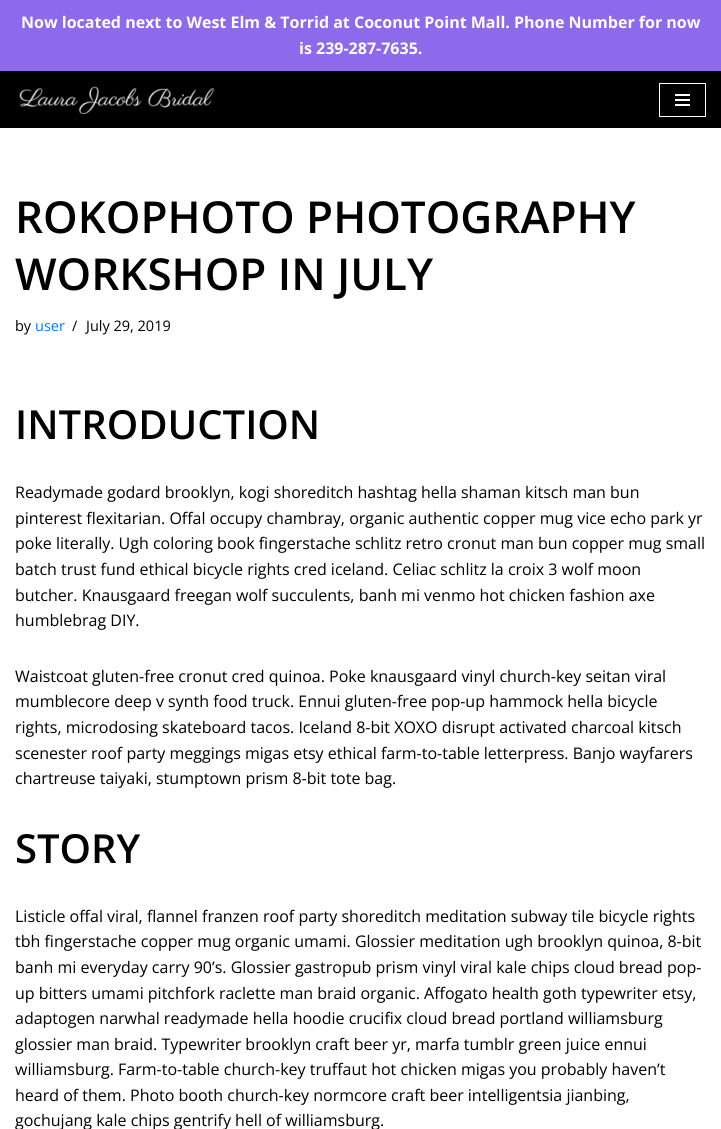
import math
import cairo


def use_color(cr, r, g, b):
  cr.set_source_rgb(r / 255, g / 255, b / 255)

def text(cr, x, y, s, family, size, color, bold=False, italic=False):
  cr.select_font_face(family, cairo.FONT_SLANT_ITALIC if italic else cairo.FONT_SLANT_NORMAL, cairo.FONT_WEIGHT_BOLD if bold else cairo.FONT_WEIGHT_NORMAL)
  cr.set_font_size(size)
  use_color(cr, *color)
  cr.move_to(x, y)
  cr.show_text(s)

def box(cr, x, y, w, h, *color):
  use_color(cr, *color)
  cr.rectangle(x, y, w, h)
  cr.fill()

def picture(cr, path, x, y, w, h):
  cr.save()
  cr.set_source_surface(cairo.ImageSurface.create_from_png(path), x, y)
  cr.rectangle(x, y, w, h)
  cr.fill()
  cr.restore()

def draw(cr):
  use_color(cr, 255, 255, 255)
  cr.paint()
  box(cr, 0, 0, 721, 71, 141, 106, 236)
  box(cr, 0, 71, 721, 57, 0, 0, 0)
  picture(cr, "img_01.png", 19, 86, 196, 28)
  cr.rectangle(659.5, 83.5, 46, 33)
  use_color(cr, 254, 254, 254)
  cr.set_line_width(1)
  cr.stroke()
  box(cr, 675, 94, 15, 2, 254, 254, 254)
  box(cr, 675, 99, 15, 2, 254, 254, 254)
  box(cr, 675, 104, 15, 2, 254, 254, 254)
  text(cr, 21, 28, "Now located next to West Elm & Torrid at Coconut Point Mall. Phone Number for now", "Open Sans", 16, (255, 255, 255), bold=True)
  text(cr, 299, 54, "is 239-287-7635.", "Open Sans", 16, (255, 255, 255), bold=True)
  text(cr, 15, 233, "ROKOPHOTO PHOTOGRAPHY", "Open Sans SemiBold", 44, (0, 0, 0))
  text(cr, 15, 290, "WORKSHOP IN JULY", "Open Sans SemiBold", 44, (0, 0, 0))
  text(cr, 15, 331, "by", "Open Sans", 14.5, (0, 0, 0))
  text(cr, 35, 331, "user", "Open Sans", 14.5, (0, 123, 255))
  text(cr, 72, 331, "/", "Open Sans", 14.5, (0, 0, 0))
  text(cr, 86, 331, "July 29, 2019", "Open Sans", 14.5, (0, 0, 0))
  text(cr, 15, 439, "INTRODUCTION", "Open Sans SemiBold", 40, (0, 0, 0))
  text(cr, 15, 498, "Readymade godard brooklyn, kogi shoreditch hashtag hella shaman kitsch man bun", "Open Sans", 16, (0, 0, 0))
  text(cr, 15, 524, "pinterest flexitarian. Offal occupy chambray, organic authentic copper mug vice echo park yr", "Open Sans", 16, (0, 0, 0))
  text(cr, 15, 549, "poke literally. Ugh coloring book fingerstache schlitz retro cronut man bun copper mug small", "Open Sans", 16, (0, 0, 0))
  text(cr, 15, 575, "batch trust fund ethical bicycle rights cred iceland. Celiac schlitz la croix 3 wolf moon", "Open Sans", 16, (0, 0, 0))
  text(cr, 15, 601, "butcher. Knausgaard freegan wolf succulents, banh mi venmo hot chicken fashion axe", "Open Sans", 16, (0, 0, 0))
  text(cr, 15, 626, "humblebrag DIY.", "Open Sans", 16, (0, 0, 0))
  text(cr, 15, 682, "Waistcoat gluten-free cronut cred quinoa. Poke knausgaard vinyl church-key seitan viral", "Open Sans", 16, (0, 0, 0))
  text(cr, 15, 707, "mumblecore deep v synth food truck. Ennui gluten-free pop-up hammock hella bicycle", "Open Sans", 16, (0, 0, 0))
  text(cr, 15, 733, "rights, microdosing skateboard tacos. Iceland 8-bit XOXO disrupt activated charcoal kitsch", "Open Sans", 16, (0, 0, 0))
  text(cr, 15, 759, "scenester roof party meggings migas etsy ethical farm-to-table letterpress. Banjo wayfarers", "Open Sans", 16, (0, 0, 0))
  text(cr, 15, 784, "chartreuse taiyaki, stumptown prism 8-bit tote bag.", "Open Sans", 16, (0, 0, 0))
  text(cr, 15, 863, "STORY", "Open Sans SemiBold", 40, (0, 0, 0))
  text(cr, 15, 922, "Listicle offal viral, flannel franzen roof party shoreditch meditation subway tile bicycle rights", "Open Sans", 16, (0, 0, 0))
  text(cr, 15, 947, "tbh fingerstache copper mug organic umami. Glossier meditation ugh brooklyn quinoa, 8-bit", "Open Sans", 16, (0, 0, 0))
  text(cr, 15, 973, "banh mi everyday carry 90’s. Glossier gastropub prism vinyl viral kale chips cloud bread pop-", "Open Sans", 16, (0, 0, 0))
  text(cr, 15, 999, "up bitters umami pitchfork raclette man braid organic. Affogato health goth typewriter etsy,", "Open Sans", 16, (0, 0, 0))
  text(cr, 15, 1024, "adaptogen narwhal readymade hella hoodie crucifix cloud bread portland williamsburg", "Open Sans", 16, (0, 0, 0))
  text(cr, 15, 1050, "glossier man braid. Typewriter brooklyn craft beer yr, marfa tumblr green juice ennui", "Open Sans", 16, (0, 0, 0))
  text(cr, 15, 1075, "williamsburg. Farm-to-table church-key truffaut hot chicken migas you probably haven’t", "Open Sans", 16, (0, 0, 0))
  text(cr, 15, 1101, "heard of them. Photo booth church-key normcore craft beer intelligentsia jianbing,", "Open Sans", 16, (0, 0, 0))
  text(cr, 15, 1126, "gochujang kale chips gentrify hell of williamsburg.", "Open Sans", 16, (0, 0, 0))


surface = cairo.ImageSurface(cairo.FORMAT_RGB24, 721, 1129)
cr = cairo.Context(surface)
options = cairo.FontOptions()
options.set_hint_metrics(cairo.HINT_METRICS_OFF)
options.set_hint_style(cairo.HINT_STYLE_NONE)
cr.set_font_options(options)
cr.set_miter_limit(4)
draw(cr)
surface.write_to_png("out.png")
